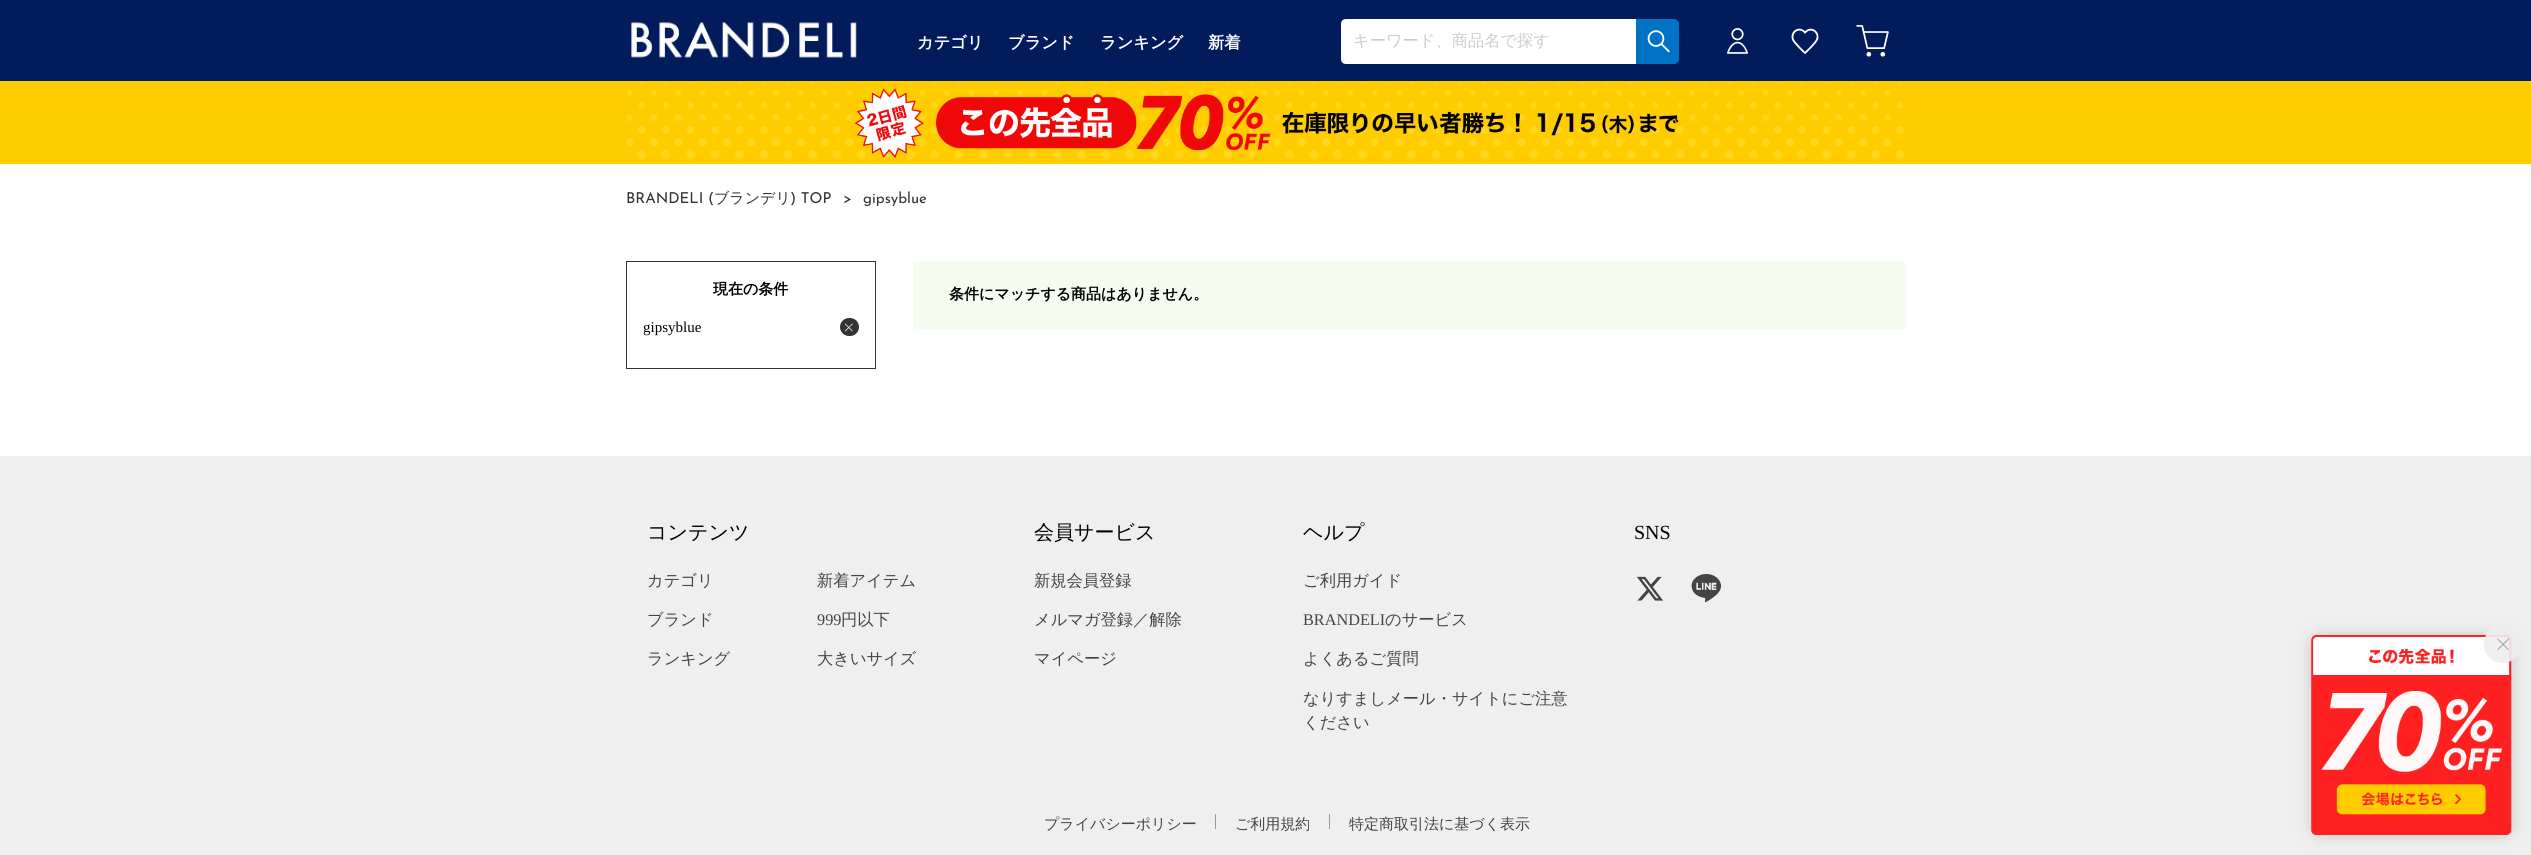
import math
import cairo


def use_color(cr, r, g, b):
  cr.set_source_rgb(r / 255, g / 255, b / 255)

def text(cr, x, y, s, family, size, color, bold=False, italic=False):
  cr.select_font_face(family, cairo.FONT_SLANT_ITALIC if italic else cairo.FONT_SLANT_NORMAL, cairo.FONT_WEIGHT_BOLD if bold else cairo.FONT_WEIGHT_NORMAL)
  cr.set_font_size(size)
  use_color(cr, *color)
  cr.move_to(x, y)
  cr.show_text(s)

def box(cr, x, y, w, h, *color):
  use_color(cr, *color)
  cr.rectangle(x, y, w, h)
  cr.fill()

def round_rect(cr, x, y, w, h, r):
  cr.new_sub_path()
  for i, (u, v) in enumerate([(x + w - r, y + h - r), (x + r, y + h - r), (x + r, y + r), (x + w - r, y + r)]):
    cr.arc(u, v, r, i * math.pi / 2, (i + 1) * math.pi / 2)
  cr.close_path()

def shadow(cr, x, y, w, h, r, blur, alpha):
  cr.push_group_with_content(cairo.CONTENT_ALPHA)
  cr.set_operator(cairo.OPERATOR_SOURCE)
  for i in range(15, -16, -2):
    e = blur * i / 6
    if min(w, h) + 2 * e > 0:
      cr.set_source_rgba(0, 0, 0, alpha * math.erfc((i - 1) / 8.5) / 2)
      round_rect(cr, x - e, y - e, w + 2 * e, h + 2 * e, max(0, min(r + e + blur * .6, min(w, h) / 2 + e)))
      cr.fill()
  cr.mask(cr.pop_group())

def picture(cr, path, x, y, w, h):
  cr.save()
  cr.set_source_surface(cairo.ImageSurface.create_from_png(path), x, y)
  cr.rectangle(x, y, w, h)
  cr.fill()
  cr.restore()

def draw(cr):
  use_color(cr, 255, 255, 255)
  cr.paint()
  box(cr, 0, 0, 2531, 81, 2, 27, 91)
  picture(cr, "img_01.png", 631, 22, 226, 36)
  use_color(cr, 255, 255, 255)
  cr.new_path()
  cr.move_to(1346, 19)
  cr.line_to(1671, 19)
  cr.curve_to(1675.5, 19, 1679, 22.5, 1679, 27)
  cr.line_to(1679, 56)
  cr.curve_to(1679, 60.5, 1675.5, 64, 1671, 64)
  cr.line_to(1346, 64)
  cr.curve_to(1343, 64, 1341, 62, 1341, 59)
  cr.line_to(1341, 24)
  cr.curve_to(1341, 21, 1343, 19, 1346, 19)
  cr.close_path()
  cr.fill()
  use_color(cr, 0, 115, 198)
  cr.new_path()
  cr.move_to(1636.5, 19.5)
  cr.line_to(1674, 19.5)
  cr.curve_to(1676.5, 19.5, 1678.5, 21.5, 1678.5, 24)
  cr.line_to(1678.5, 59)
  cr.curve_to(1678.5, 61.5, 1676.5, 63.5, 1674, 63.5)
  cr.line_to(1636.5, 63.5)
  cr.close_path()
  cr.fill_preserve()
  cr.set_line_width(1)
  cr.stroke()
  picture(cr, "img_02.png", 1647, 30, 23, 23)
  picture(cr, "img_03.png", 1727, 28, 21, 26)
  picture(cr, "img_04.png", 1791, 28, 28, 26)
  picture(cr, "img_05.png", 1856, 25, 33, 32)
  box(cr, 0, 81, 2531, 83, 255, 204, 0)
  picture(cr, "img_06.png", 626, 81, 1279, 83)
  box(cr, 0, 456, 2531, 399, 239, 239, 239)
  use_color(cr, 0, 0, 0)
  shadow(cr, 2319, 643, 185, 185, 0, 10, 0.4)
  picture(cr, "img_08.png", 2311, 635, 201, 200)
  cr.set_source_rgba(0.933, 0.933, 0.933, 0.9)
  round_rect(cr, 2484, 625, 37, 38, 18.5)
  cr.fill()
  picture(cr, "img_07.png", 2497, 638, 12, 13)
  cr.rectangle(626.5, 261.5, 249, 107)
  use_color(cr, 51, 51, 51)
  cr.stroke()
  round_rect(cr, 840, 318, 19, 18, 9)
  cr.fill()
  picture(cr, "img_09.png", 844, 323, 9, 9)
  use_color(cr, 247, 252, 240)
  round_rect(cr, 913, 261, 993, 68, 2.5)
  cr.fill()
  picture(cr, "img_10.png", 1637, 576, 26, 25)
  picture(cr, "img_11.png", 1691, 574, 30, 29)
  box(cr, 1215, 814, 1, 15, 153, 153, 153)
  box(cr, 1329, 814, 1, 15, 153, 153, 153)
  text(cr, 917, 48, "カテゴリ", "WenQuanYi Zen Hei", 16.25, (255, 255, 255), bold=True)
  text(cr, 1008, 48, "ブランド", "WenQuanYi Zen Hei", 16.25, (255, 255, 255), bold=True)
  text(cr, 1100, 48, "ランキング", "WenQuanYi Zen Hei", 16.25, (255, 255, 255), bold=True)
  text(cr, 1208, 48, "新着", "WenQuanYi Zen Hei", 16.25, (255, 255, 255), bold=True)
  text(cr, 1353, 46, "キーワード、商品名で探す", "WenQuanYi Zen Hei Medium", 16.25, (204, 204, 204))
  text(cr, 626, 203, "BRANDELI (", "Josefin Sans", 15, (51, 51, 51))
  text(cr, 714, 203, "ブランデリ", "WenQuanYi Zen Hei Medium", 15, (51, 51, 51))
  text(cr, 790, 203, ") TOP", "Josefin Sans", 15, (51, 51, 51))
  text(cr, 843, 203, ">", "Josefin Sans", 15, (51, 51, 51))
  text(cr, 863, 203, "gipsyblue", "Josefin Sans", 15, (51, 51, 51))
  text(cr, 713, 294, "現在の条件", "WenQuanYi Zen Hei", 15, (0, 0, 0), bold=True)
  text(cr, 643, 332, "gipsyblue", "Liberation Serif", 15, (0, 0, 0))
  text(cr, 949, 299, "条件にマッチする商品はありません。", "WenQuanYi Zen Hei", 15, (0, 0, 0), bold=True)
  text(cr, 647, 539, "コンテンツ", "WenQuanYi Zen Hei Medium", 20, (0, 0, 0))
  text(cr, 647, 586, "カテゴリ", "WenQuanYi Zen Hei Medium", 16.25, (68, 68, 68))
  text(cr, 817, 586, "新着アイテム", "WenQuanYi Zen Hei Medium", 16.25, (68, 68, 68))
  text(cr, 647, 625, "ブランド", "WenQuanYi Zen Hei Medium", 16.25, (68, 68, 68))
  text(cr, 817, 625, "999", "Liberation Serif", 16.25, (68, 68, 68))
  text(cr, 841, 625, "円以下", "WenQuanYi Zen Hei Medium", 16.25, (68, 68, 68))
  text(cr, 647, 664, "ランキング", "WenQuanYi Zen Hei Medium", 16.25, (68, 68, 68))
  text(cr, 817, 664, "大きいサイズ", "WenQuanYi Zen Hei Medium", 16.25, (68, 68, 68))
  text(cr, 1034, 539, "会員サービス", "WenQuanYi Zen Hei Medium", 20, (0, 0, 0))
  text(cr, 1034, 586, "新規会員登録", "WenQuanYi Zen Hei Medium", 16.25, (68, 68, 68))
  text(cr, 1034, 625, "メルマガ登録／解除", "WenQuanYi Zen Hei Medium", 16.25, (68, 68, 68))
  text(cr, 1034, 664, "マイページ", "WenQuanYi Zen Hei Medium", 16.25, (68, 68, 68))
  text(cr, 1303, 539, "ヘルプ", "WenQuanYi Zen Hei Medium", 20, (0, 0, 0))
  text(cr, 1303, 586, "ご利用ガイド", "WenQuanYi Zen Hei Medium", 16.25, (68, 68, 68))
  text(cr, 1303, 625, "BRANDELI", "Liberation Serif", 16.25, (68, 68, 68))
  text(cr, 1385, 625, "のサービス", "WenQuanYi Zen Hei Medium", 16.25, (68, 68, 68))
  text(cr, 1303, 664, "よくあるご質問", "WenQuanYi Zen Hei Medium", 16.25, (68, 68, 68))
  text(cr, 1303, 704, "なりすましメール・サイトにご注意", "WenQuanYi Zen Hei Medium", 16.25, (68, 68, 68))
  text(cr, 1303, 728, "ください", "WenQuanYi Zen Hei Medium", 16.25, (68, 68, 68))
  text(cr, 1634, 539, "SNS", "Liberation Serif", 20, (0, 0, 0))
  text(cr, 1044, 829, "プライバシーポリシー", "WenQuanYi Zen Hei Medium", 15, (68, 68, 68))
  text(cr, 1235, 829, "ご利用規約", "WenQuanYi Zen Hei Medium", 15, (68, 68, 68))
  text(cr, 1349, 829, "特定商取引法に基づく表示", "WenQuanYi Zen Hei Medium", 15, (68, 68, 68))


surface = cairo.ImageSurface(cairo.FORMAT_RGB24, 2531, 855)
cr = cairo.Context(surface)
options = cairo.FontOptions()
options.set_hint_metrics(cairo.HINT_METRICS_OFF)
options.set_hint_style(cairo.HINT_STYLE_NONE)
cr.set_font_options(options)
cr.set_miter_limit(4)
draw(cr)
surface.write_to_png("out.png")
